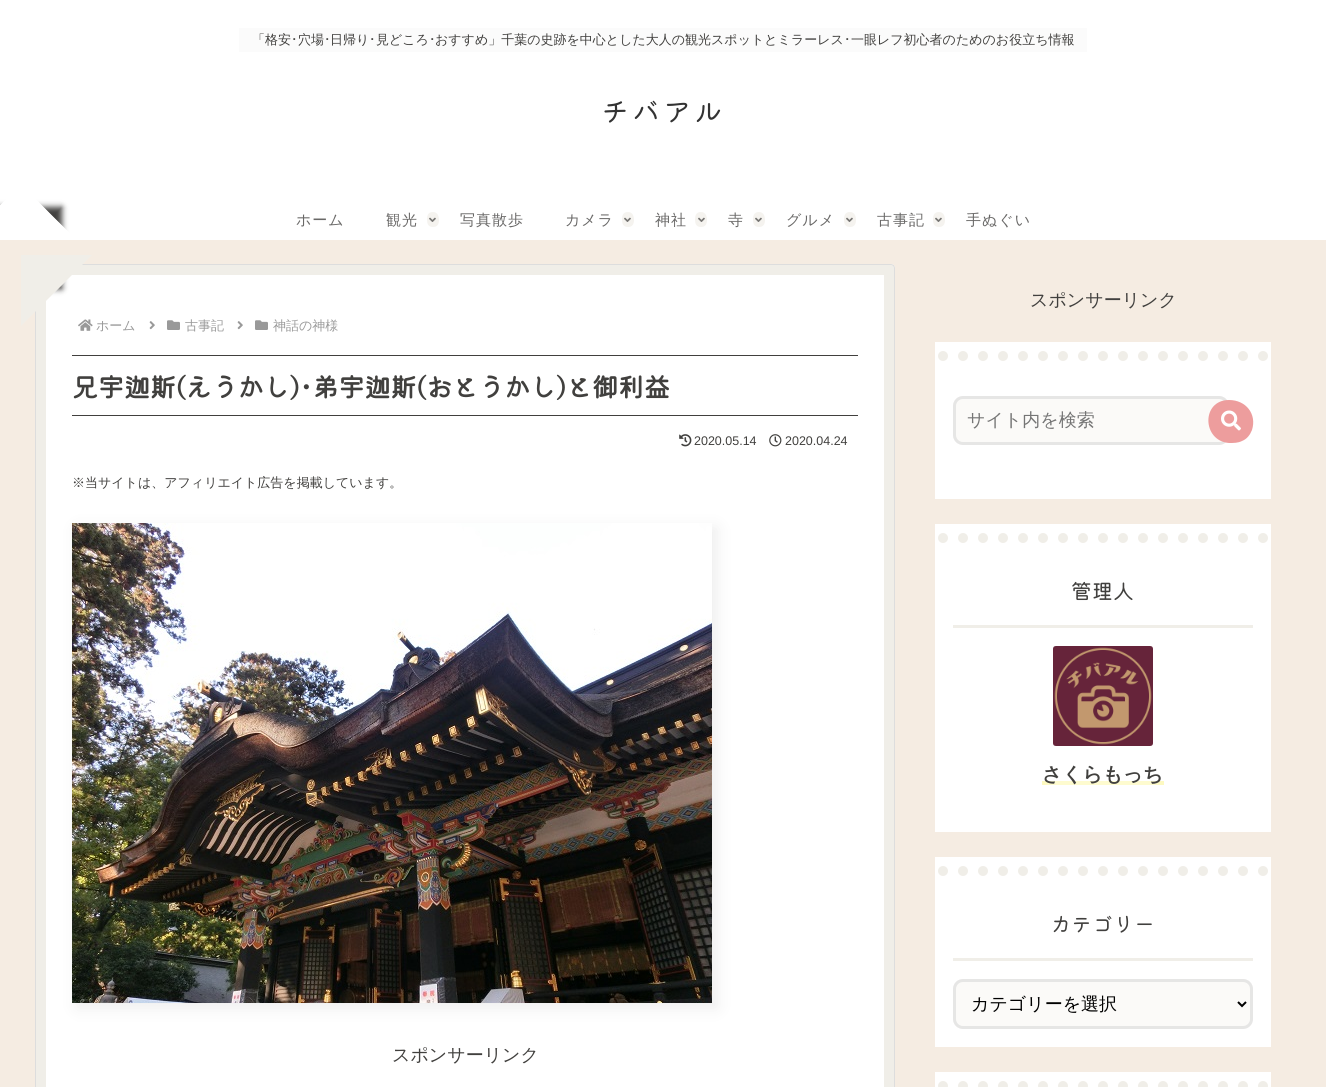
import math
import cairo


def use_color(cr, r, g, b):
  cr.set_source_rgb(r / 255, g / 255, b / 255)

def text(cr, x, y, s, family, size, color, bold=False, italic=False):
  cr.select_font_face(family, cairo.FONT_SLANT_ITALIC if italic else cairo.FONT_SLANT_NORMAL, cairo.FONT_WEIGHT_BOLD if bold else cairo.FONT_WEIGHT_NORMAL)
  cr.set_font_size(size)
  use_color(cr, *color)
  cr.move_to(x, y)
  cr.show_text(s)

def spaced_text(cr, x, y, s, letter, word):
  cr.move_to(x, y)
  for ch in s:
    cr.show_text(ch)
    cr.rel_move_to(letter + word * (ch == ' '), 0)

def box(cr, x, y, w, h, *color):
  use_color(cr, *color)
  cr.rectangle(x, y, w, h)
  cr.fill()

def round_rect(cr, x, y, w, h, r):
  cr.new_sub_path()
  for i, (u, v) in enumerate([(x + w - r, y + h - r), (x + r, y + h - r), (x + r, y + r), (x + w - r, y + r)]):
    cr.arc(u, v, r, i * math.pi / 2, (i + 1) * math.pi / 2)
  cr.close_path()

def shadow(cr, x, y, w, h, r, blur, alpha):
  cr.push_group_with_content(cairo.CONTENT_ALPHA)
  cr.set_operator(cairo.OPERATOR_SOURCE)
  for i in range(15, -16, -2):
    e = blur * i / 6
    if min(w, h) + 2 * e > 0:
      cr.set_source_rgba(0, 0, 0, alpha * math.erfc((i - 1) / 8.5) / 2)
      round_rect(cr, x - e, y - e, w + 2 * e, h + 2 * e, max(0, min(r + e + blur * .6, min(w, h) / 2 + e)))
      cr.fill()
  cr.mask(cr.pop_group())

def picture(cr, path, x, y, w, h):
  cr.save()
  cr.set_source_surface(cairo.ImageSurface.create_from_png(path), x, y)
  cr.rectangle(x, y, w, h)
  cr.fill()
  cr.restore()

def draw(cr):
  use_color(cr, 245, 236, 226)
  cr.paint()
  box(cr, 0, 0, 1326, 240, 255, 255, 255)
  box(cr, 239, 28, 848, 24, 251, 251, 251)
  use_color(cr, 245, 243, 239)
  cr.new_path()
  cr.move_to(433, 212)
  cr.curve_to(437.5, 212, 439, 216, 439, 220)
  cr.curve_to(439, 224, 437.5, 227, 433, 227)
  cr.curve_to(428, 227, 427, 223.5, 427, 219.5)
  cr.curve_to(427, 215.5, 428, 212, 433, 212)
  cr.close_path()
  cr.fill()
  picture(cr, "img_01.png", 429, 217, 7, 5)
  cr.new_path()
  cr.move_to(628, 212)
  cr.curve_to(632.5, 212, 634, 216, 634, 220)
  cr.curve_to(634, 224, 632.5, 227, 628, 227)
  cr.curve_to(623, 227, 622, 223.5, 622, 219.5)
  cr.curve_to(622, 215.5, 623, 212, 628, 212)
  cr.close_path()
  cr.fill()
  picture(cr, "img_01.png", 624, 217, 7, 5)
  cr.new_path()
  cr.move_to(701, 212)
  cr.curve_to(705.5, 212, 707, 216, 707, 220)
  cr.curve_to(707, 224, 705.5, 227, 701, 227)
  cr.curve_to(696, 227, 695, 223.5, 695, 219.5)
  cr.curve_to(695, 215.5, 696, 212, 701, 212)
  cr.close_path()
  cr.fill()
  picture(cr, "img_01.png", 698, 217, 7, 5)
  cr.new_path()
  cr.move_to(759, 212)
  cr.curve_to(763.5, 212, 765, 216, 765, 220)
  cr.curve_to(765, 224, 763.5, 227, 759, 227)
  cr.curve_to(754, 227, 753, 223.5, 753, 219.5)
  cr.curve_to(753, 215.5, 754, 212, 759, 212)
  cr.close_path()
  cr.fill()
  picture(cr, "img_01.png", 755, 217, 7, 5)
  cr.new_path()
  cr.move_to(850, 212)
  cr.curve_to(854.5, 212, 856, 216, 856, 220)
  cr.curve_to(856, 224, 854.5, 227, 850, 227)
  cr.curve_to(845, 227, 844, 223.5, 844, 219.5)
  cr.curve_to(844, 215.5, 845, 212, 850, 212)
  cr.close_path()
  cr.fill()
  picture(cr, "img_01.png", 846, 217, 7, 5)
  cr.new_path()
  cr.move_to(939, 212)
  cr.curve_to(943.5, 212, 945, 216, 945, 220)
  cr.curve_to(945, 224, 943.5, 227, 939, 227)
  cr.curve_to(934, 227, 933, 223.5, 933, 219.5)
  cr.curve_to(933, 215.5, 934, 212, 939, 212)
  cr.close_path()
  cr.fill()
  picture(cr, "img_01.png", 935, 217, 7, 5)
  use_color(cr, 255, 255, 255)
  round_rect(cr, 35, 264, 860, 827, 4)
  cr.fill()
  cr.new_path()
  cr.move_to(41, 270)
  cr.line_to(889, 270)
  cr.line_to(889, 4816)
  cr.line_to(41, 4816)
  cr.close_path()
  use_color(cr, 240, 238, 232)
  cr.set_line_width(10)
  cr.stroke()
  round_rect(cr, 35.5, 264.5, 859, 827, 3.5)
  use_color(cr, 221, 221, 221)
  cr.set_line_width(1)
  cr.stroke()
  cr.save()
  cr.set_fill_rule(cairo.FILL_RULE_EVEN_ODD)
  cr.new_path()
  cr.move_to(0, 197)
  cr.line_to(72, 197)
  cr.line_to(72, 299)
  cr.line_to(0, 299)
  cr.close_path()
  cr.move_to(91.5, 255)
  cr.line_to(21, 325.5)
  cr.line_to(-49.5, 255)
  cr.line_to(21, 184.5)
  cr.close_path()
  cr.clip()
  use_color(cr, 65, 64, 62)
  shadow(cr, -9, 207, 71, 82, 0, 3, 1)
  cr.restore()
  picture(cr, "img_02.png", 78, 319, 15, 12)
  use_color(cr, 240, 238, 232)
  cr.new_path()
  cr.move_to(92, 255)
  cr.line_to(21, 326)
  cr.line_to(21, 255)
  cr.close_path()
  cr.fill()
  picture(cr, "img_03.png", 149, 321, 6, 9)
  picture(cr, "img_04.png", 167, 320, 13, 10)
  picture(cr, "img_03.png", 237, 321, 6, 9)
  picture(cr, "img_04.png", 255, 320, 13, 10)
  box(cr, 72, 355, 786, 1, 65, 64, 62)
  box(cr, 72, 415, 786, 1, 65, 64, 62)
  picture(cr, "img_05.png", 679, 434, 13, 13)
  picture(cr, "img_06.png", 769, 434, 13, 13)
  use_color(cr, 238, 238, 238)
  shadow(cr, 77, 528, 640, 480, 0, 7.5, 1)
  picture(cr, "img_07.png", 72, 523, 640, 480)
  box(cr, 935, 342, 336, 157, 255, 255, 255)
  cr.new_path()
  cr.move_to(943, 356)
  cr.line_to(1263, 356)
  use_color(cr, 240, 238, 232)
  cr.set_line_width(10)
  cr.set_line_cap(cairo.LINE_CAP_ROUND)
  cr.set_dash([0, 20])
  cr.stroke()
  use_color(cr, 251, 250, 248)
  round_rect(cr, 953, 396, 276, 49, 10)
  cr.fill()
  round_rect(cr, 954.5, 397.5, 273, 46, 8.5)
  cr.set_source_rgba(0.867, 0.867, 0.867, 0.7)
  cr.set_line_width(3)
  cr.set_line_cap(cairo.LINE_CAP_BUTT)
  cr.set_dash([])
  cr.stroke()
  use_color(cr, 237, 157, 157)
  cr.new_path()
  cr.move_to(1229, 400)
  cr.curve_to(1246, 400, 1257, 414, 1252, 430)
  cr.curve_to(1250, 435, 1247, 439, 1242, 441)
  cr.curve_to(1238, 443, 1234, 443, 1229, 443)
  cr.curve_to(1202, 441, 1201, 400, 1229, 400)
  cr.close_path()
  cr.fill()
  picture(cr, "img_08.png", 1221, 410, 20, 21)
  box(cr, 935, 524, 336, 308, 255, 255, 255)
  cr.new_path()
  cr.move_to(943, 538)
  cr.line_to(1263, 538)
  use_color(cr, 240, 238, 232)
  cr.set_line_width(10)
  cr.set_line_cap(cairo.LINE_CAP_ROUND)
  cr.set_dash([0, 20])
  cr.stroke()
  box(cr, 953, 625, 300, 3, 240, 238, 232)
  picture(cr, "img_09.png", 1053, 646, 100, 100)
  gradient = cairo.LinearGradient(1164, 783, 1042, 783)
  gradient.add_color_stop_rgba(0.04, 0.992, 0.976, 0.757, 1)
  gradient.add_color_stop_rgba(0.08, 0.996, 0.984, 0.812, 1)
  cr.set_source(gradient)
  cr.rectangle(1042, 781, 122, 4)
  cr.fill()
  gradient = cairo.LinearGradient(1042, 783, 1164, 783)
  gradient.add_color_stop_rgba(0.02, 0.988, 0.965, 0.624, 0.3)
  gradient.add_color_stop_rgba(0.08, 0.988, 0.965, 0.624, 0)
  cr.set_source(gradient)
  cr.rectangle(1042, 781, 9, 4)
  cr.fill()
  box(cr, 935, 857, 336, 190, 255, 255, 255)
  cr.new_path()
  cr.move_to(943, 871)
  cr.line_to(1263, 871)
  use_color(cr, 240, 238, 232)
  cr.stroke()
  box(cr, 953, 958, 300, 3, 240, 238, 232)
  use_color(cr, 251, 250, 248)
  round_rect(cr, 953, 979, 300, 50, 10)
  cr.fill()
  round_rect(cr, 954.5, 980.5, 297, 47, 8.5)
  cr.set_source_rgba(0.867, 0.867, 0.867, 0.7)
  cr.set_line_width(3)
  cr.set_line_cap(cairo.LINE_CAP_BUTT)
  cr.set_dash([])
  cr.stroke()
  cr.new_path()
  cr.move_to(1238, 1002)
  cr.line_to(1242, 1006)
  cr.line_to(1246, 1002)
  use_color(cr, 0, 0, 0)
  cr.set_line_width(2)
  cr.stroke()
  box(cr, 935, 1072, 336, 15, 255, 255, 255)
  cr.new_path()
  cr.move_to(943, 1086)
  cr.line_to(1263, 1086)
  use_color(cr, 240, 238, 232)
  cr.set_line_width(10)
  cr.set_line_cap(cairo.LINE_CAP_ROUND)
  cr.set_dash([0, 20])
  cr.stroke()
  text(cr, 252, 44, "「格安", "WenQuanYi Zen Hei Medium", 13, (65, 64, 62))
  text(cr, 291, 44, "･", "IPAPGothic", 13, (65, 64, 62))
  text(cr, 298, 44, "穴場", "WenQuanYi Zen Hei Medium", 13, (65, 64, 62))
  text(cr, 324, 44, "･", "IPAPGothic", 13, (65, 64, 62))
  text(cr, 330, 44, "日帰り", "WenQuanYi Zen Hei Medium", 13, (65, 64, 62))
  text(cr, 369, 44, "･", "IPAPGothic", 13, (65, 64, 62))
  text(cr, 376, 44, "見どころ", "WenQuanYi Zen Hei Medium", 13, (65, 64, 62))
  text(cr, 429, 44, "･", "IPAPGothic", 13, (65, 64, 62))
  text(cr, 435, 44, "おすすめ」千葉の史跡を中心とした大人の観光スポットとミラーレス", "WenQuanYi Zen Hei Medium", 13, (65, 64, 62))
  text(cr, 844, 44, "･", "IPAPGothic", 13, (65, 64, 62))
  text(cr, 851, 44, "一眼レフ初心者のためのお役立ち情報", "WenQuanYi Zen Hei Medium", 13, (65, 64, 62))
  cr.select_font_face("Kiwi Maru")
  cr.set_font_size(28)
  use_color(cr, 51, 51, 51)
  spaced_text(cr, 601, 122, "チバアル", 3, 0)
  cr.select_font_face("WenQuanYi Zen Hei Medium")
  cr.set_font_size(15)
  use_color(cr, 105, 104, 103)
  spaced_text(cr, 296, 225, "ホーム", 1, 0)
  spaced_text(cr, 386, 225, "観光", 1, 0)
  spaced_text(cr, 460, 225, "写真散歩", 1, 0)
  spaced_text(cr, 565, 225, "カメラ", 1, 0)
  spaced_text(cr, 655, 225, "神社", 1, 0)
  spaced_text(cr, 728, 225, "寺", 1, 0)
  spaced_text(cr, 786, 225, "グルメ", 1, 0)
  spaced_text(cr, 877, 225, "古事記", 1, 0)
  spaced_text(cr, 966, 225, "手ぬぐい", 1, 0)
  text(cr, 96, 330, "ホーム", "WenQuanYi Zen Hei Medium", 13, (153, 153, 153))
  text(cr, 185, 330, "古事記", "WenQuanYi Zen Hei Medium", 13, (153, 153, 153))
  text(cr, 273, 330, "神話の神様", "WenQuanYi Zen Hei Medium", 13, (153, 153, 153))
  text(cr, 72, 397, "兄宇迦斯(えうかし)･弟宇迦斯(おとうかし)と御利益", "Kiwi Maru", 26, (65, 64, 62), bold=True)
  text(cr, 694, 445, "2020.05.14", "Liberation Sans", 12.5, (65, 64, 62))
  text(cr, 785, 445, "2020.04.24", "Liberation Sans", 12.5, (65, 64, 62))
  text(cr, 72, 487, "※当サイトは、アフィリエイト広告を掲載しています。", "WenQuanYi Zen Hei Medium", 13, (65, 64, 62))
  text(cr, 392, 1061, "スポンサーリンク", "WenQuanYi Zen Hei Medium", 18, (65, 64, 62))
  text(cr, 1030, 306, "スポンサーリンク", "WenQuanYi Zen Hei Medium", 18, (65, 64, 62))
  text(cr, 967, 426, "サイト内を検索", "WenQuanYi Zen Hei Medium", 18, (117, 117, 117))
  text(cr, 1071, 599, "管理人", "Kiwi Maru", 21, (65, 64, 62))
  text(cr, 1042, 781, "さくらもっち", "WenQuanYi Zen Hei", 19.75, (65, 64, 62), bold=True)
  text(cr, 1050, 932, "カテゴリー", "Kiwi Maru", 21, (65, 64, 62))
  text(cr, 971, 1010, "カテゴリーを選択", "WenQuanYi Zen Hei Medium", 18, (0, 0, 0))


surface = cairo.ImageSurface(cairo.FORMAT_RGB24, 1326, 1087)
cr = cairo.Context(surface)
options = cairo.FontOptions()
options.set_hint_metrics(cairo.HINT_METRICS_OFF)
options.set_hint_style(cairo.HINT_STYLE_NONE)
cr.set_font_options(options)
cr.set_miter_limit(4)
draw(cr)
surface.write_to_png("out.png")
